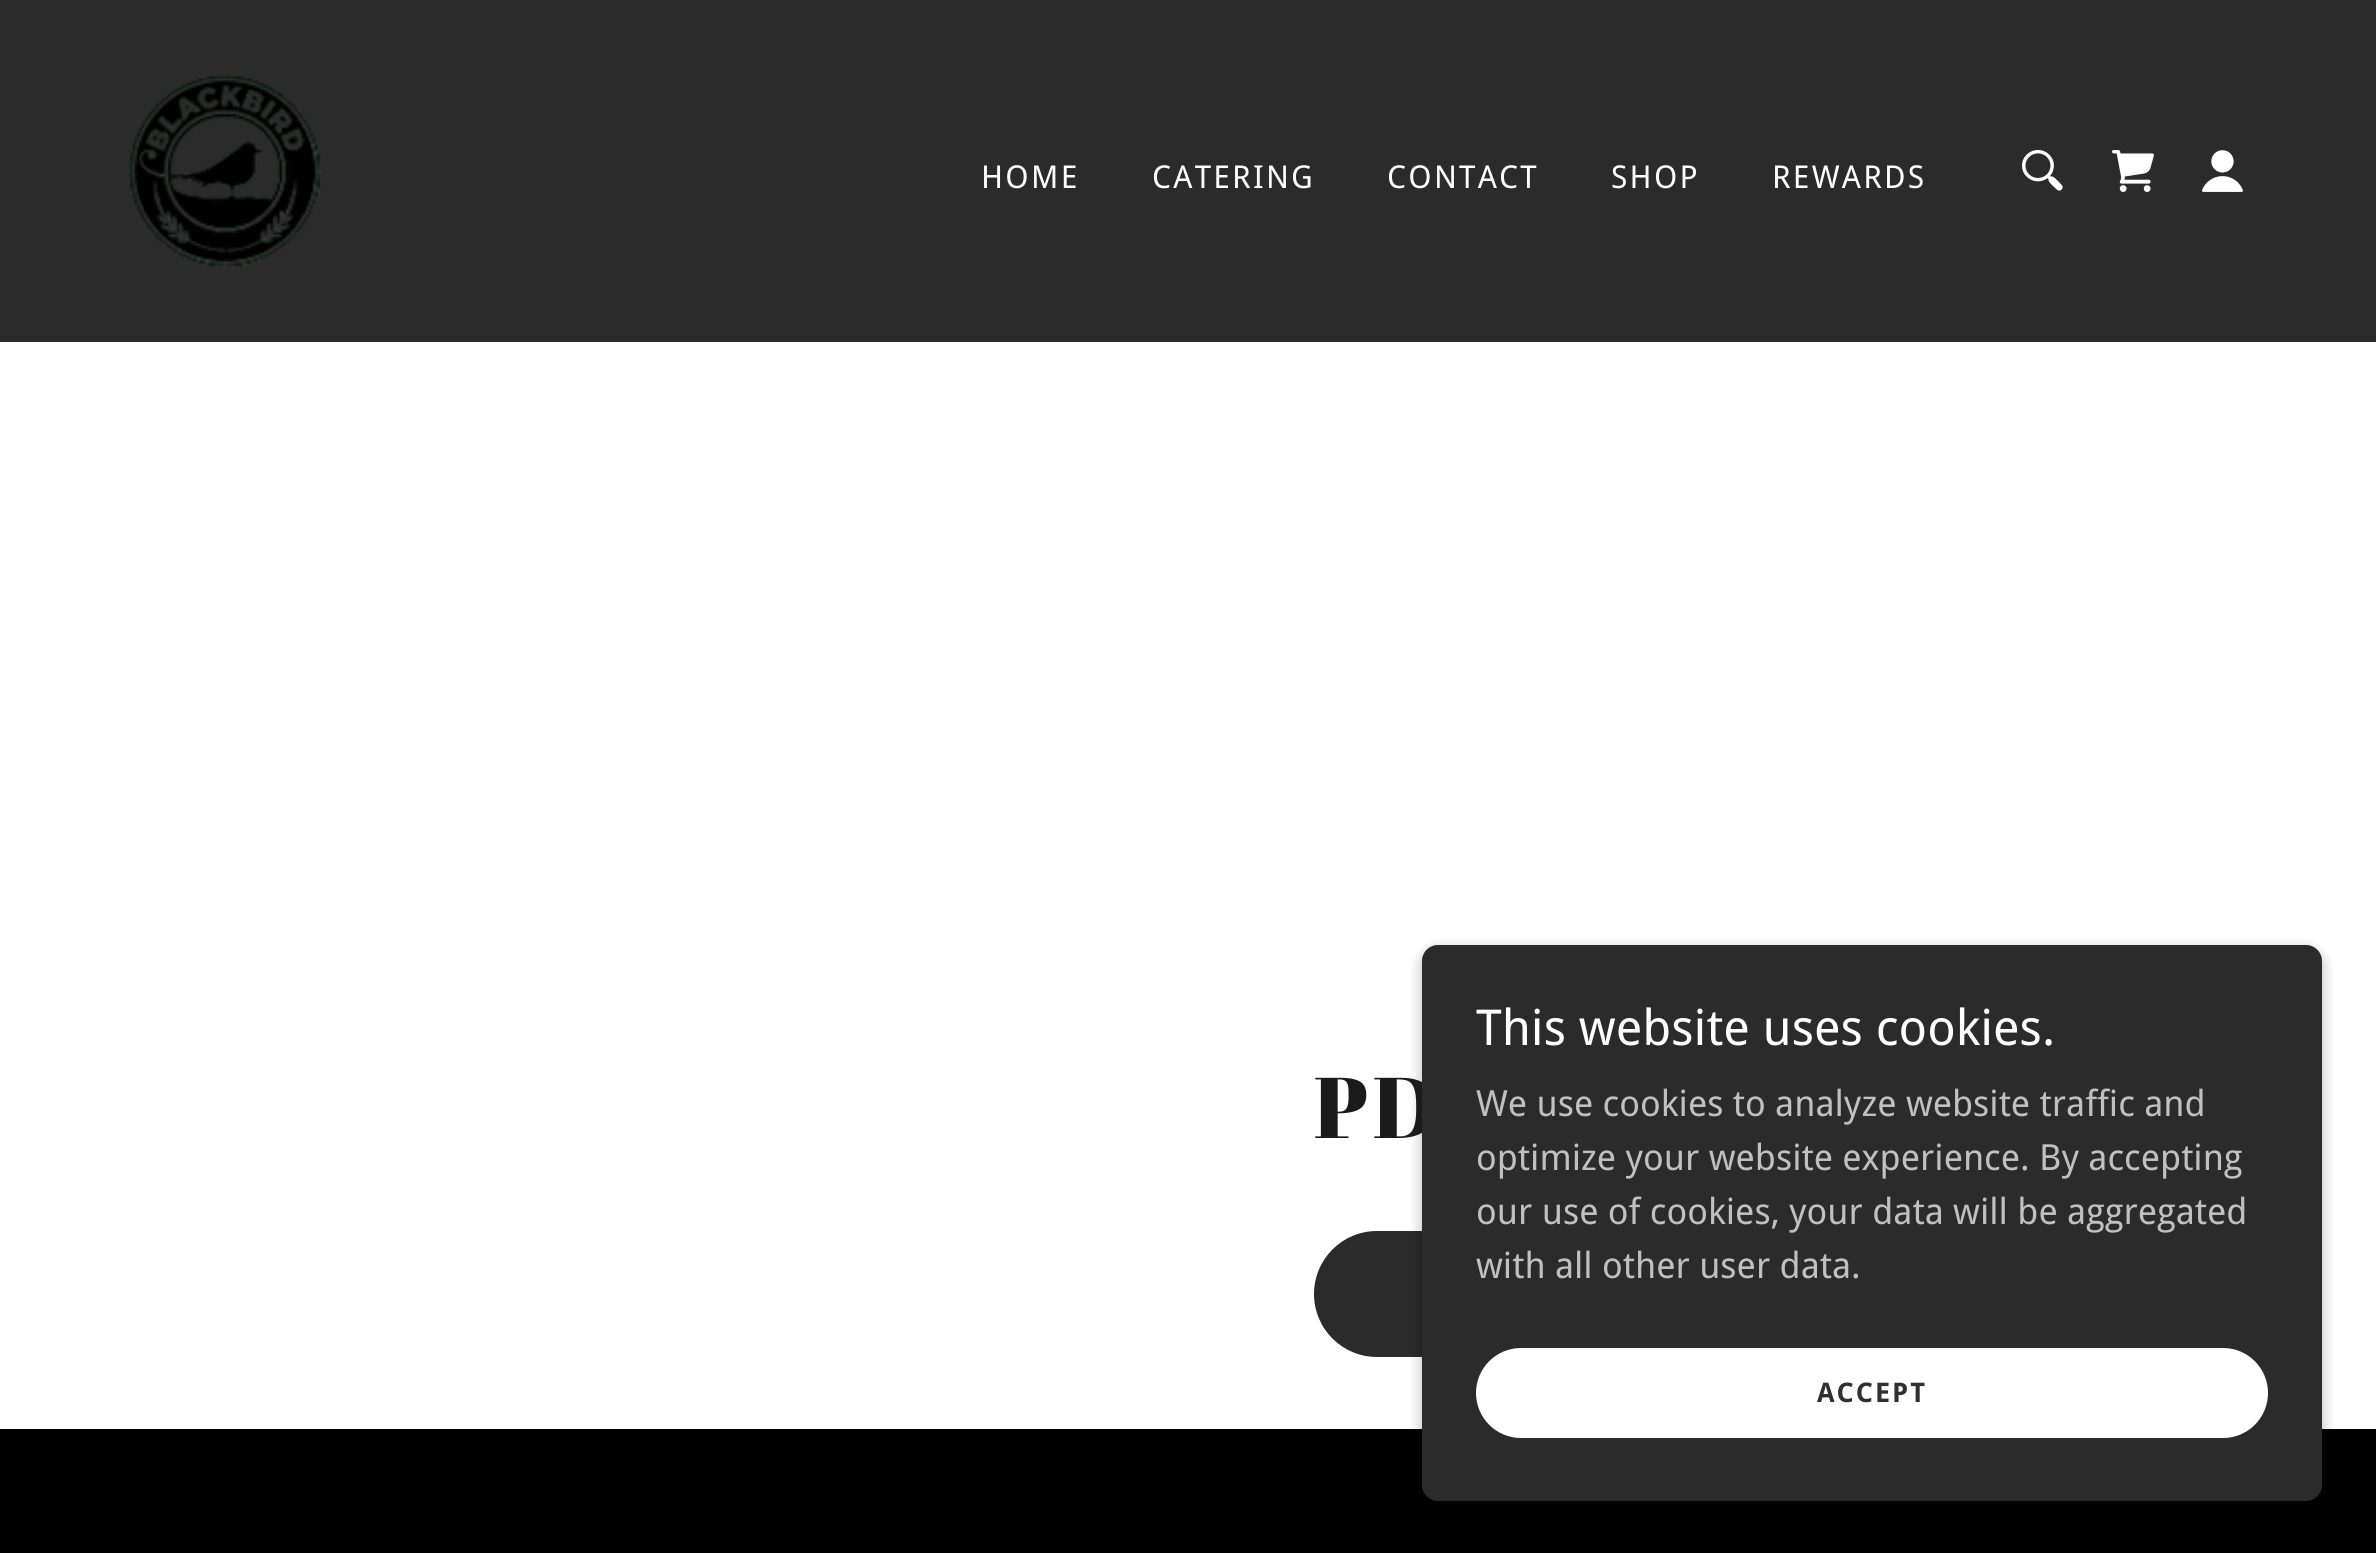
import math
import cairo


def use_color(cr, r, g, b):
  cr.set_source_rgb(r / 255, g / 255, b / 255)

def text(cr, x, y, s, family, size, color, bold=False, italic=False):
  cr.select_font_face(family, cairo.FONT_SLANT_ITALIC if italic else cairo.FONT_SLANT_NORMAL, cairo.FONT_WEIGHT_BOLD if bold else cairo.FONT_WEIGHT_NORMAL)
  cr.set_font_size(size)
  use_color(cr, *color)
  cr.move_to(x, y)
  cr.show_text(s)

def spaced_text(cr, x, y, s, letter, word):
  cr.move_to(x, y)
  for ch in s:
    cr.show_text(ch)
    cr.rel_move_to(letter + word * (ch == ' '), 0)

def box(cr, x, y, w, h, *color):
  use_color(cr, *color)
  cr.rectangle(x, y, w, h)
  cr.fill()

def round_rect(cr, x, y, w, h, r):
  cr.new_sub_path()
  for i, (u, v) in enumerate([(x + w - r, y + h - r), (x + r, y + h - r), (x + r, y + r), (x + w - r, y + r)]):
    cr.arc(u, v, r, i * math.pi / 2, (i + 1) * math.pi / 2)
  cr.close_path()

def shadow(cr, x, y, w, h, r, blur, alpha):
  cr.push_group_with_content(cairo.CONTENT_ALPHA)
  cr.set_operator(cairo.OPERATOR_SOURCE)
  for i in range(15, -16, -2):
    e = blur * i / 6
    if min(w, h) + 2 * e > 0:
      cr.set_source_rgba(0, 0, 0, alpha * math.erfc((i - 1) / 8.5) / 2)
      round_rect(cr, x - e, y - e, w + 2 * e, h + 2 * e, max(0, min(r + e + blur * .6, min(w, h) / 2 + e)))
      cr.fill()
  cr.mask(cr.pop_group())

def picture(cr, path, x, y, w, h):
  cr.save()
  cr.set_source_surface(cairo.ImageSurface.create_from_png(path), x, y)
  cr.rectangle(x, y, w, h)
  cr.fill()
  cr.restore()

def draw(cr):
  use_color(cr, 0, 0, 0)
  cr.paint()
  box(cr, 0, 0, 2376, 342, 43, 43, 43)
  picture(cr, "img_01.png", 128, 74, 194, 194)
  picture(cr, "img_02.png", 2022, 150, 41, 41)
  picture(cr, "img_03.png", 2112, 150, 42, 42)
  picture(cr, "img_04.png", 2202, 150, 41, 42)
  box(cr, 0, 342, 2376, 1087, 255, 255, 255)
  use_color(cr, 43, 43, 43)
  round_rect(cr, 1314, 1231, 284, 126, 63)
  cr.fill()
  use_color(cr, 0, 0, 0)
  shadow(cr, 1422, 950, 900, 555, 16, 7, 0.3)
  cr.select_font_face("Droid Sans")
  cr.set_font_size(31.5)
  use_color(cr, 255, 255, 255)
  spaced_text(cr, 981, 188, "HOME", 2.25, 0)
  spaced_text(cr, 1152, 188, "CATERING", 2.25, 0)
  spaced_text(cr, 1387, 188, "CONTACT", 2.25, 0)
  spaced_text(cr, 1611, 188, "SHOP", 2.25, 0)
  spaced_text(cr, 1772, 188, "REWARDS", 2.25, 0)
  cr.select_font_face("Abril Fatface")
  cr.set_font_size(86)
  use_color(cr, 27, 27, 27)
  spaced_text(cr, 1314, 1138, "PD", 4, 0)
  use_color(cr, 43, 43, 43)
  round_rect(cr, 1422, 945, 900, 556, 16)
  cr.fill()
  text(cr, 1476, 1045, "This website uses cookies.", "Droid Sans", 49.5, (255, 255, 255))
  text(cr, 1476, 1116, "We use cookies to analyze website traffic and", "Droid Sans", 36, (192, 192, 192))
  text(cr, 1476, 1170, "optimize your website experience. By accepting", "Droid Sans", 36, (192, 192, 192))
  text(cr, 1476, 1224, "our use of cookies, your data will be aggregated", "Droid Sans", 36, (192, 192, 192))
  text(cr, 1476, 1278, "with all other user data.", "Droid Sans", 36, (192, 192, 192))
  use_color(cr, 255, 255, 255)
  round_rect(cr, 1476, 1348, 792, 90, 45)
  cr.fill()
  cr.select_font_face("Droid Sans", cairo.FONT_SLANT_NORMAL, cairo.FONT_WEIGHT_BOLD)
  cr.set_font_size(27)
  use_color(cr, 48, 48, 48)
  spaced_text(cr, 1817, 1402, "ACCEPT", 2, 0)


surface = cairo.ImageSurface(cairo.FORMAT_RGB24, 2376, 1553)
cr = cairo.Context(surface)
options = cairo.FontOptions()
options.set_hint_metrics(cairo.HINT_METRICS_OFF)
options.set_hint_style(cairo.HINT_STYLE_NONE)
cr.set_font_options(options)
cr.set_miter_limit(4)
draw(cr)
surface.write_to_png("out.png")
